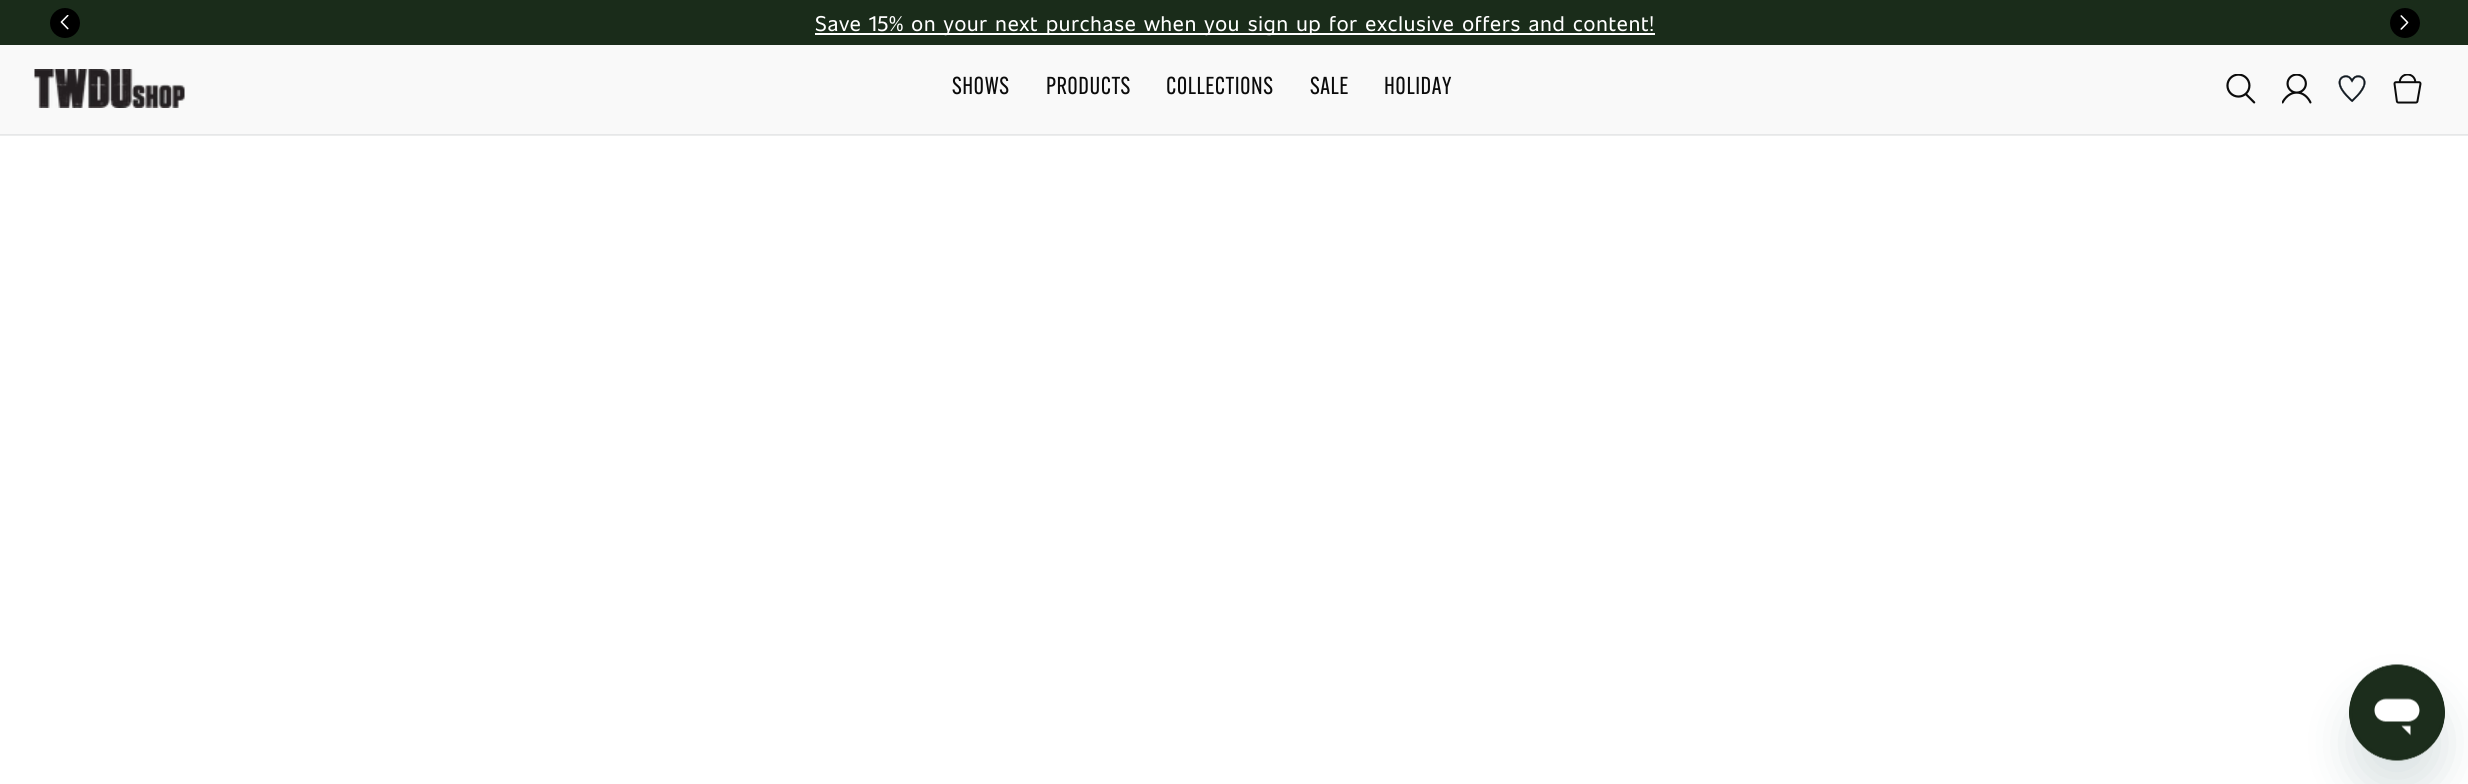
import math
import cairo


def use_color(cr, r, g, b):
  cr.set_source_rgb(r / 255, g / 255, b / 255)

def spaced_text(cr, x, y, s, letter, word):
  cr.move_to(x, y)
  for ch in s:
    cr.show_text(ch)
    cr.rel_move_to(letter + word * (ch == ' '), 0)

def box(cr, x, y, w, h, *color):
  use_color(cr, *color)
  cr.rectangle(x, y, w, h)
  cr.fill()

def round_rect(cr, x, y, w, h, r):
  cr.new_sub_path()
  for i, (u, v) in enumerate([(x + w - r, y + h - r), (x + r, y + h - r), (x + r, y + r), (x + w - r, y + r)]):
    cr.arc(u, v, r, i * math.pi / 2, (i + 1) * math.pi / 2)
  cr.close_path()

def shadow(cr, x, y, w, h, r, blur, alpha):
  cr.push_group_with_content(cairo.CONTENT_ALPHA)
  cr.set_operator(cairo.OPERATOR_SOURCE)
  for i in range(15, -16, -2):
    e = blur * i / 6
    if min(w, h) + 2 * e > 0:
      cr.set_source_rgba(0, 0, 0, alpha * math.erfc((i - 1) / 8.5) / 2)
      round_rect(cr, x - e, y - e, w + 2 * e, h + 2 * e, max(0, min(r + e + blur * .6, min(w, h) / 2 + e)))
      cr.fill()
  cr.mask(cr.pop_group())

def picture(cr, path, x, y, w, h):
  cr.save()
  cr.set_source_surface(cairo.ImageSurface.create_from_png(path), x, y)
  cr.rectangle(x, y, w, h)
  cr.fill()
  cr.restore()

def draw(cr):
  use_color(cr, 255, 255, 255)
  cr.paint()
  box(cr, 0, 135, 2468, 1, 236, 237, 237)
  box(cr, 0, 0, 2468, 45, 26, 44, 26)
  use_color(cr, 0, 0, 0)
  cr.arc(65, 23, 14, 0, 2 * math.pi)
  cr.fill_preserve()
  cr.stroke()
  picture(cr, "img_01.png", 60, 15, 9, 15)
  cr.arc(2405, 23, 14, 0, 2 * math.pi)
  cr.fill_preserve()
  cr.stroke()
  picture(cr, "img_02.png", 2400, 15, 9, 15)
  box(cr, 815, 33, 840, 2, 255, 255, 255)
  box(cr, 0, 45, 2468, 89, 249, 249, 249)
  box(cr, 0, 134, 2468, 1, 230, 231, 232)
  picture(cr, "img_03.png", 34, 69, 151, 39)
  picture(cr, "img_04.png", 2226, 74, 30, 30)
  picture(cr, "img_05.png", 2282, 74, 30, 30)
  picture(cr, "img_06.png", 2338, 75, 28, 28)
  picture(cr, "img_07.png", 2393, 74, 29, 30)
  use_color(cr, 23, 73, 77)
  shadow(cr, 2349, 695, 96, 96, 48, 22.5, 0.15)
  picture(cr, "img_08.png", 2349, 664, 96, 97)
  cr.select_font_face("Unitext")
  cr.set_font_size(21)
  use_color(cr, 255, 255, 255)
  spaced_text(cr, 815, 31, "Save 15% on your next purchase when you sign up for exclusive offers and content!", 0.85, 0)
  cr.select_font_face("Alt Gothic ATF")
  cr.set_font_size(24)
  use_color(cr, 11, 11, 11)
  spaced_text(cr, 952, 94, "SHOWS", 0.5, 0)
  spaced_text(cr, 1046, 94, "PRODUCTS", 0.5, 0)
  spaced_text(cr, 1166, 94, "COLLECTIONS", 0.5, 0)
  spaced_text(cr, 1310, 94, "SALE", 0.5, 0)
  spaced_text(cr, 1384, 94, "HOLIDAY", 0.5, 0)


surface = cairo.ImageSurface(cairo.FORMAT_RGB24, 2468, 784)
cr = cairo.Context(surface)
options = cairo.FontOptions()
options.set_hint_metrics(cairo.HINT_METRICS_OFF)
options.set_hint_style(cairo.HINT_STYLE_NONE)
cr.set_font_options(options)
cr.set_miter_limit(4)
draw(cr)
surface.write_to_png("out.png")
